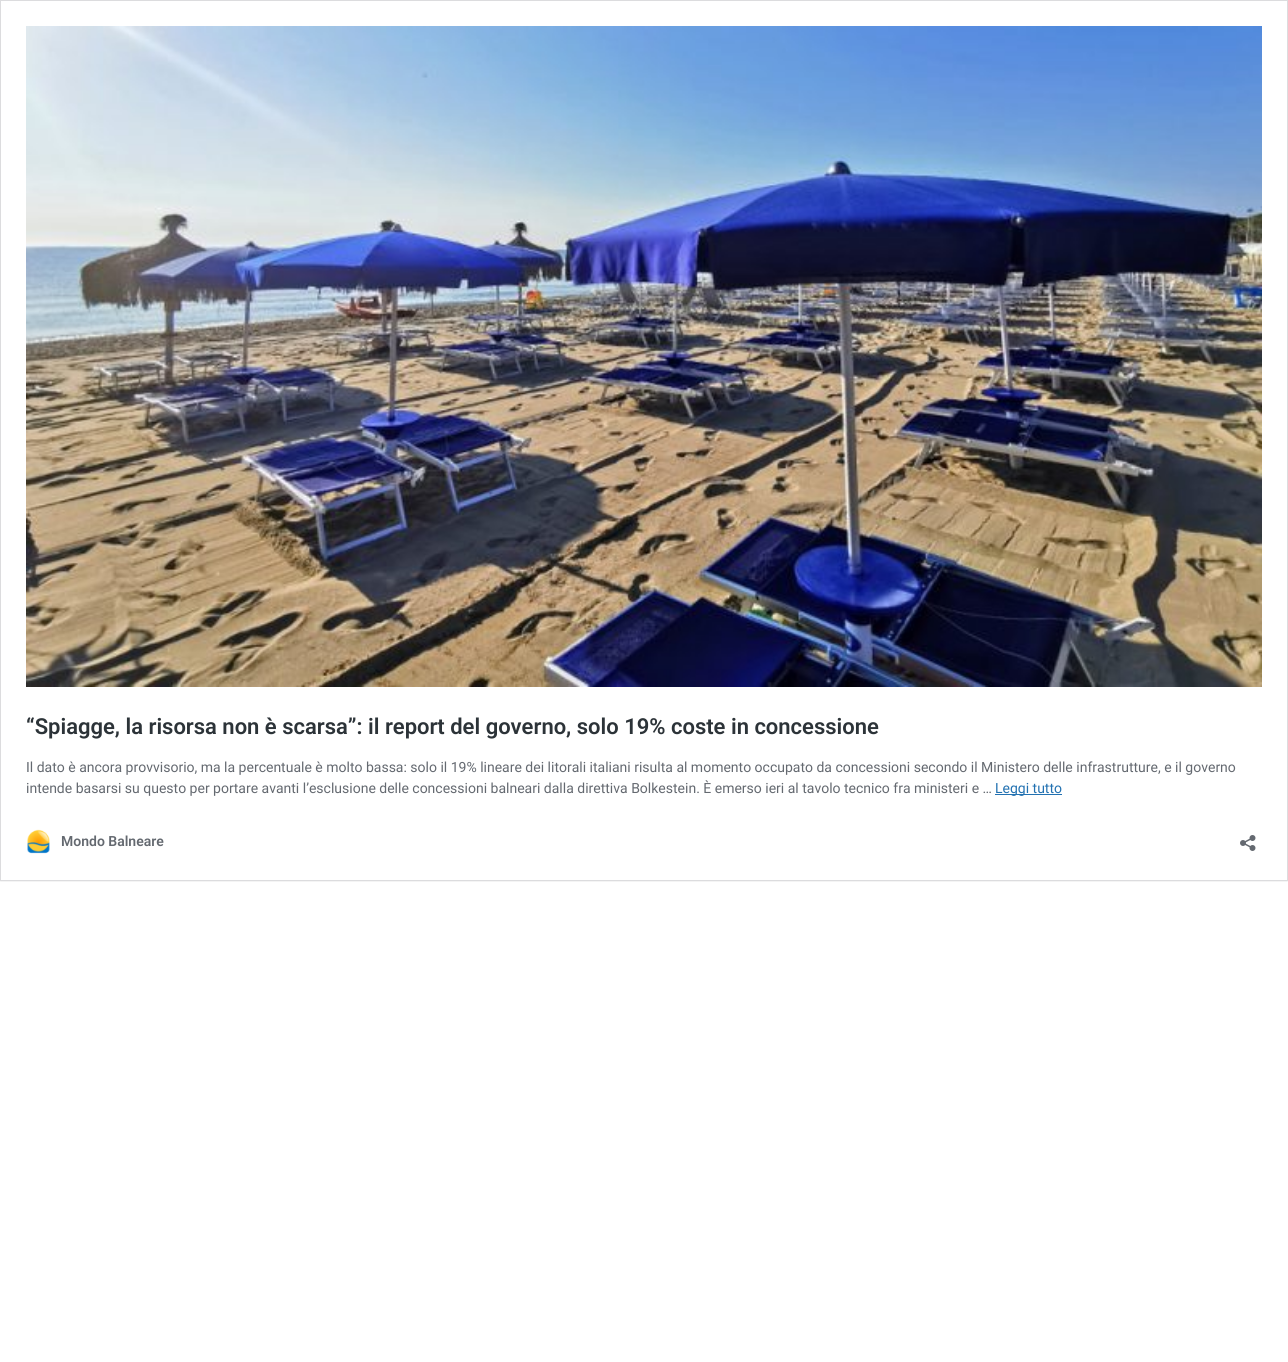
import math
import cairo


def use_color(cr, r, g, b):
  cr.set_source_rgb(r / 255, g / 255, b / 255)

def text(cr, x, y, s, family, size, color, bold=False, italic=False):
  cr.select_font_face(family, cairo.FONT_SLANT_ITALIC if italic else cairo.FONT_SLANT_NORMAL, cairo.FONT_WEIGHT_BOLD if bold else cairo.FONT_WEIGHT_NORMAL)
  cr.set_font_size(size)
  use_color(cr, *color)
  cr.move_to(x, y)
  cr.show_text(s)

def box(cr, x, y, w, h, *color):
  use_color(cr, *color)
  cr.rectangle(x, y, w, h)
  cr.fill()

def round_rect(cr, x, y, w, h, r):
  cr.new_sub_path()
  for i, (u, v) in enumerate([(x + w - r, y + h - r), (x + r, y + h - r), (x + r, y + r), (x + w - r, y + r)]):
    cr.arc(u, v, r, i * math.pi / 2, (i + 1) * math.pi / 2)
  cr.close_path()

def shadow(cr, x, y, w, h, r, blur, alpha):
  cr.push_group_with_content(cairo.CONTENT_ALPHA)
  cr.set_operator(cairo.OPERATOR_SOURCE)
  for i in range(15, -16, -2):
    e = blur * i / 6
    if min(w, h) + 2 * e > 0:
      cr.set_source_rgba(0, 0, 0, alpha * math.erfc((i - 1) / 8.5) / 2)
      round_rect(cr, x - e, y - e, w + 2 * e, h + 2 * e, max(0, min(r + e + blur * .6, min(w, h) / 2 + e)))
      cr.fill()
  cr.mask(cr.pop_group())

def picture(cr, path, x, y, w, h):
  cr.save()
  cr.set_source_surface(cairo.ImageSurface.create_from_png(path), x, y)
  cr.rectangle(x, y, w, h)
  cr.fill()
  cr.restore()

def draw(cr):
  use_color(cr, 255, 255, 255)
  cr.paint()
  cr.save()
  cr.rectangle(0, 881, 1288, 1)
  cr.clip()
  use_color(cr, 0, 0, 0)
  shadow(cr, 0, 1, 1288, 881, 0, 0.5, 0.05)
  cr.restore()
  cr.rectangle(0.5, 0.5, 1287, 880)
  use_color(cr, 220, 220, 222)
  cr.set_line_width(1)
  cr.stroke()
  picture(cr, "img_01.png", 26, 26, 1236, 661)
  box(cr, 995, 794, 67, 1, 34, 113, 177)
  picture(cr, "img_02.png", 27, 829, 23, 25)
  picture(cr, "img_03.png", 1240, 835, 16, 16)
  text(cr, 26, 734, "“Spiagge, la risorsa non è scarsa”: il report del governo, solo 19% coste in concessione", "Roboto SemiBold", 22, (44, 51, 56))
  text(cr, 26, 772, "Il dato è ancora provvisorio, ma la percentuale è molto bassa: solo il 19% lineare dei litorali italiani risulta al momento occupato da concessioni secondo il Ministero delle infrastrutture, e il governo", "Roboto", 14, (100, 105, 112))
  text(cr, 26, 793, "intende basarsi su questo per portare avanti l’esclusione delle concessioni balneari dalla direttiva Bolkestein. È emerso ieri al tavolo tecnico fra ministeri e …", "Roboto", 14, (100, 105, 112))
  text(cr, 995, 793, "Leggi tutto", "Roboto", 14, (34, 113, 177))
  text(cr, 61, 846, "Mondo Balneare", "Roboto SemiBold", 14, (100, 105, 112))


surface = cairo.ImageSurface(cairo.FORMAT_RGB24, 1288, 1362)
cr = cairo.Context(surface)
options = cairo.FontOptions()
options.set_hint_metrics(cairo.HINT_METRICS_OFF)
options.set_hint_style(cairo.HINT_STYLE_NONE)
cr.set_font_options(options)
cr.set_miter_limit(4)
draw(cr)
surface.write_to_png("out.png")
